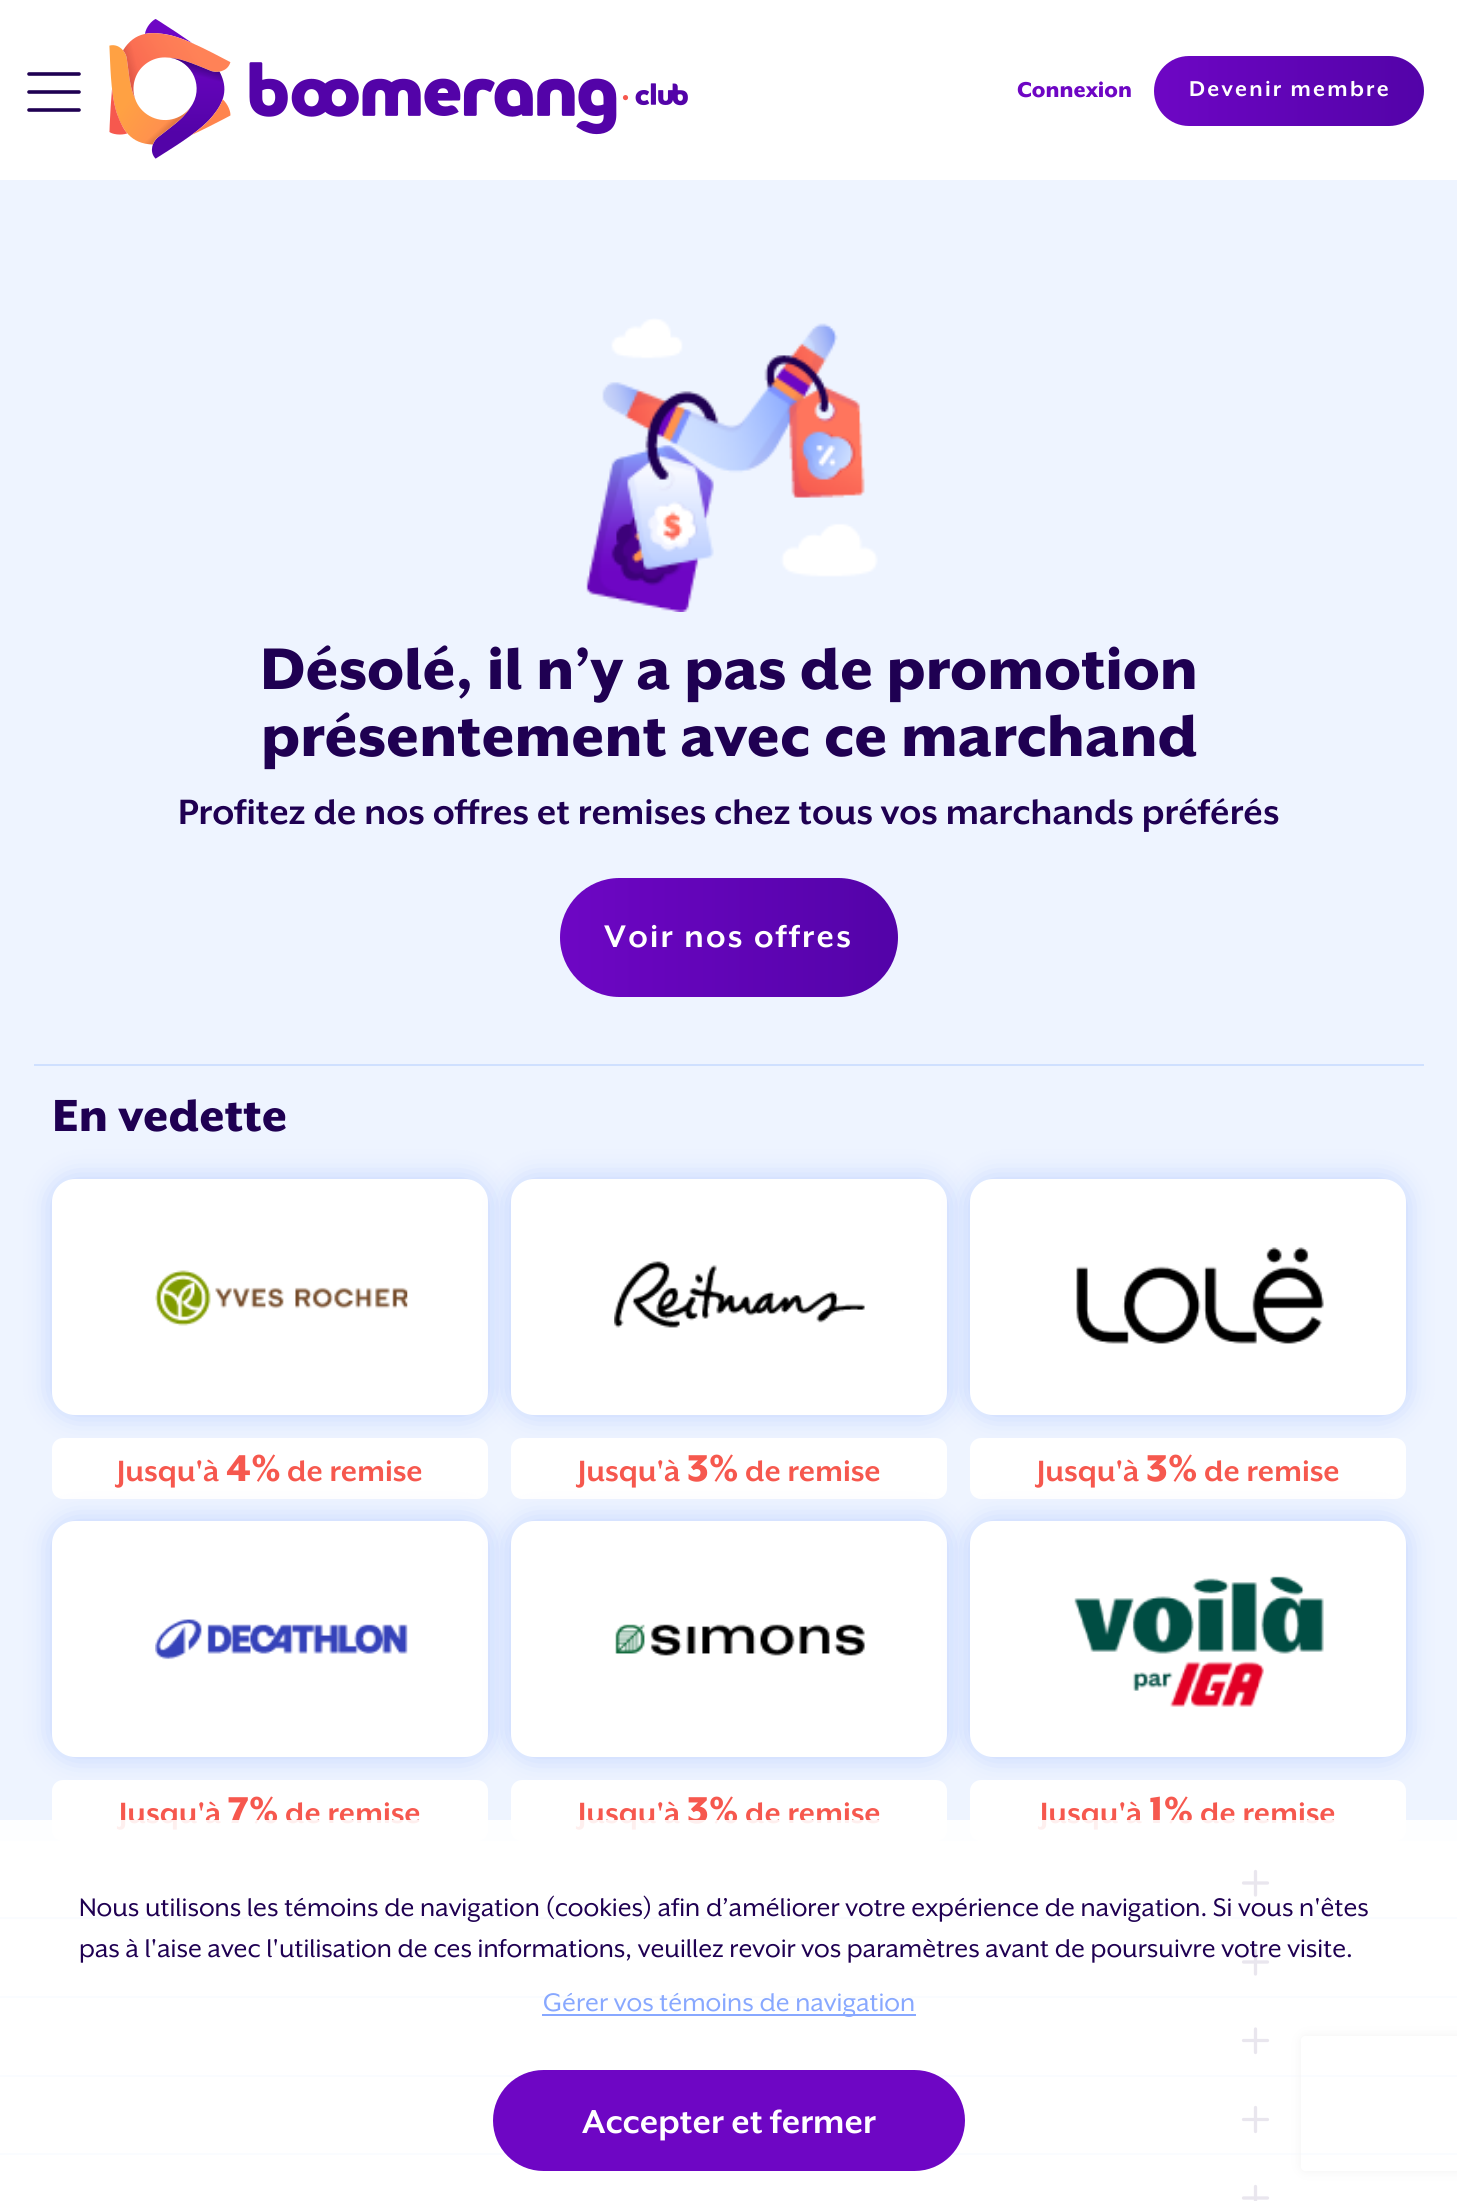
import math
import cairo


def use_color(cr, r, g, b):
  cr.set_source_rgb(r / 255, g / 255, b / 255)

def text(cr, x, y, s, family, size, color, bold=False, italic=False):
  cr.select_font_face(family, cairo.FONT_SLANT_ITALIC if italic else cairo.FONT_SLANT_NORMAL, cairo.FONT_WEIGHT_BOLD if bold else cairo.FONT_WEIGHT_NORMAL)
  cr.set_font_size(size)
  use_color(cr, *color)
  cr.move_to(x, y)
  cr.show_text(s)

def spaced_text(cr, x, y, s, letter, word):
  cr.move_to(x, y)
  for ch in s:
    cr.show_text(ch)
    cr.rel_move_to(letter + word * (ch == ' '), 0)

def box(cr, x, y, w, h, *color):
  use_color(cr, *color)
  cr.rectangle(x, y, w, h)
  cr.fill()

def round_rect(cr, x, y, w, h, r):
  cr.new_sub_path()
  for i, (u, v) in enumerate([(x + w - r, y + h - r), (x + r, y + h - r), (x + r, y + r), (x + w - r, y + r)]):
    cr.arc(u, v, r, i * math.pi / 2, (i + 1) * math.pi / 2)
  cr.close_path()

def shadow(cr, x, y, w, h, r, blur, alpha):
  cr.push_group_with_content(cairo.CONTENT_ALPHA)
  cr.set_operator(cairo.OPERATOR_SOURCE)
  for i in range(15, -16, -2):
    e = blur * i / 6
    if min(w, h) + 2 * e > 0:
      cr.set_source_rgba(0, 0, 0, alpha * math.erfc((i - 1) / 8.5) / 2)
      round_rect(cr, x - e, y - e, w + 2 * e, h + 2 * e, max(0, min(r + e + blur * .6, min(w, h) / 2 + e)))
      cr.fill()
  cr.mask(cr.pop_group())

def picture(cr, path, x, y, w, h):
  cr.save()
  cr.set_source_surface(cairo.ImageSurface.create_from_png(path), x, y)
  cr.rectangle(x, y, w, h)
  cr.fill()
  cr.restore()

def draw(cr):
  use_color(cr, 238, 244, 255)
  cr.paint()
  box(cr, 0, 0, 1457, 180, 255, 255, 255)
  cr.new_path()
  cr.move_to(29, 110)
  cr.line_to(79, 110)
  cr.move_to(29, 92)
  cr.line_to(79, 92)
  cr.move_to(29, 74)
  cr.line_to(79, 74)
  use_color(cr, 31, 0, 82)
  cr.set_line_width(3.6)
  cr.set_line_cap(cairo.LINE_CAP_ROUND)
  cr.set_line_join(cairo.LINE_JOIN_ROUND)
  cr.stroke()
  picture(cr, "img_01.png", 109, 19, 579, 140)
  gradient = cairo.LinearGradient(1154, 91, 1424, 91)
  gradient.add_color_stop_rgba(0, 0.431, 0.024, 0.769, 1)
  gradient.add_color_stop_rgba(1, 0.325, 0.012, 0.659, 1)
  cr.set_source(gradient)
  round_rect(cr, 1154, 56, 270, 70, 35)
  cr.fill()
  picture(cr, "img_02.png", 586, 318, 292, 294)
  gradient = cairo.LinearGradient(560, 937, 898, 937)
  gradient.add_color_stop_rgba(0, 0.431, 0.024, 0.769, 1)
  gradient.add_color_stop_rgba(1, 0.325, 0.012, 0.659, 1)
  cr.set_source(gradient)
  round_rect(cr, 560, 878, 338, 119, 59.5)
  cr.fill()
  box(cr, 34, 1064, 1390, 2, 207, 224, 255)
  use_color(cr, 136, 168, 255)
  shadow(cr, 52, 1179, 436, 236, 23, 13.5, 0.45)
  use_color(cr, 255, 255, 255)
  round_rect(cr, 52, 1179, 436, 236, 23)
  cr.fill()
  picture(cr, "img_03.png", 155, 1270, 253, 56)
  round_rect(cr, 52, 1438, 436, 61, 11)
  cr.fill()
  use_color(cr, 136, 168, 255)
  shadow(cr, 511, 1179, 436, 236, 23, 13.5, 0.45)
  use_color(cr, 255, 255, 255)
  round_rect(cr, 511, 1179, 436, 236, 23)
  cr.fill()
  picture(cr, "img_04.png", 614, 1261, 251, 67)
  round_rect(cr, 511, 1438, 436, 61, 11)
  cr.fill()
  use_color(cr, 136, 168, 255)
  shadow(cr, 970, 1179, 436, 236, 23, 13.5, 0.45)
  use_color(cr, 255, 255, 255)
  round_rect(cr, 970, 1179, 436, 236, 23)
  cr.fill()
  picture(cr, "img_05.png", 1076, 1247, 248, 97)
  round_rect(cr, 970, 1438, 436, 61, 11)
  cr.fill()
  use_color(cr, 136, 168, 255)
  shadow(cr, 52, 1521, 436, 236, 23, 13.5, 0.45)
  use_color(cr, 255, 255, 255)
  round_rect(cr, 52, 1521, 436, 236, 23)
  cr.fill()
  picture(cr, "img_06.png", 155, 1619, 253, 41)
  round_rect(cr, 52, 1780, 436, 61, 11)
  cr.fill()
  use_color(cr, 136, 168, 255)
  shadow(cr, 511, 1521, 436, 236, 23, 13.5, 0.45)
  use_color(cr, 255, 255, 255)
  round_rect(cr, 511, 1521, 436, 236, 23)
  cr.fill()
  picture(cr, "img_07.png", 615, 1624, 250, 32)
  round_rect(cr, 511, 1780, 436, 61, 11)
  cr.fill()
  use_color(cr, 136, 168, 255)
  shadow(cr, 970, 1521, 436, 236, 23, 13.5, 0.45)
  use_color(cr, 255, 255, 255)
  round_rect(cr, 970, 1521, 436, 236, 23)
  cr.fill()
  picture(cr, "img_08.png", 1074, 1576, 250, 131)
  round_rect(cr, 970, 1780, 436, 61, 11)
  cr.fill()
  box(cr, 0, 1841, 1457, 360, 255, 255, 255)
  cr.new_path()
  cr.move_to(1255.5, 1871.5)
  cr.line_to(1255.5, 1895)
  cr.move_to(1267.5, 1883)
  cr.line_to(1243.5, 1883)
  use_color(cr, 31, 0, 82)
  cr.set_line_width(3.3)
  cr.stroke()
  box(cr, 0, 1917, 1457, 2, 207, 224, 255)
  cr.save()
  cr.rectangle(1242, 1949, 27, 27)
  cr.clip()
  cr.new_path()
  cr.move_to(1255.5, 1950)
  cr.line_to(1255.5, 1974)
  use_color(cr, 31, 0, 82)
  cr.stroke()
  cr.restore()
  cr.new_path()
  cr.move_to(1267.5, 1962)
  cr.line_to(1243.5, 1962)
  use_color(cr, 31, 0, 82)
  cr.stroke()
  box(cr, 0, 1996, 1457, 2, 207, 224, 255)
  cr.new_path()
  cr.move_to(1255.5, 2029)
  cr.line_to(1255.5, 2052.5)
  cr.move_to(1267.5, 2040.5)
  cr.line_to(1243.5, 2040.5)
  use_color(cr, 31, 0, 82)
  cr.stroke()
  box(cr, 0, 2075, 1457, 2, 207, 224, 255)
  cr.new_path()
  cr.move_to(1255.5, 2107.5)
  cr.line_to(1255.5, 2131.5)
  cr.move_to(1267.5, 2119.5)
  cr.line_to(1243.5, 2119.5)
  use_color(cr, 31, 0, 82)
  cr.stroke()
  box(cr, 0, 2153, 1457, 2, 207, 224, 255)
  cr.new_path()
  cr.move_to(1255.5, 2186.5)
  cr.line_to(1255.5, 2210)
  cr.move_to(1267.5, 2198)
  cr.line_to(1243.5, 2198)
  use_color(cr, 31, 0, 82)
  cr.stroke()
  cr.save()
  cr.set_fill_rule(cairo.FILL_RULE_EVEN_ODD)
  cr.new_path()
  cr.move_to(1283, 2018)
  cr.line_to(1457, 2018)
  cr.line_to(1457, 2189)
  cr.line_to(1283, 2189)
  cr.close_path()
  cr.move_to(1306, 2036)
  cr.line_to(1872, 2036)
  cr.curve_to(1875, 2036, 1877, 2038, 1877, 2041)
  cr.line_to(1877, 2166)
  cr.curve_to(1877, 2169, 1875, 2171, 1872, 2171)
  cr.line_to(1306, 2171)
  cr.curve_to(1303, 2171, 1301, 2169, 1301, 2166)
  cr.line_to(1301, 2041)
  cr.curve_to(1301, 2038, 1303, 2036, 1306, 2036)
  cr.close_path()
  cr.clip()
  use_color(cr, 128, 128, 128)
  shadow(cr, 1301, 2036, 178, 135, 5, 5.5, 1)
  cr.restore()
  text(cr, 1017, 97, "Connexion", "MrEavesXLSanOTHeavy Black", 24.75, (110, 6, 196))
  cr.select_font_face("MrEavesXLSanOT", cairo.FONT_SLANT_NORMAL, cairo.FONT_WEIGHT_BOLD)
  use_color(cr, 255, 255, 255)
  spaced_text(cr, 1189, 96, "Devenir membre", 2.25, 0)
  text(cr, 260, 689, "Désolé, il n’y a pas de promotion", "MrEavesXLSanOTHeavy Black", 67.5, (31, 0, 82))
  text(cr, 261, 756, "présentement avec ce marchand", "MrEavesXLSanOTHeavy Black", 67.5, (31, 0, 82))
  text(cr, 178, 824, "Profitez de nos offres et remises chez tous vos marchands préférés", "MrEavesXLSanOT", 40.5, (31, 0, 82), bold=True)
  cr.set_font_size(36)
  use_color(cr, 255, 255, 255)
  spaced_text(cr, 604, 947, "Voir nos offres", 2.25, 0)
  text(cr, 52, 1131, "En vedette", "MrEavesXLSanOTHeavy Black", 51.75, (31, 0, 82))
  text(cr, 117, 1481, "Jusqu'à", "MrEavesXLSanOT", 33.75, (246, 88, 78), bold=True)
  text(cr, 226, 1481, "4%", "MrEavesXLSanOTHeavy Black", 43, (246, 88, 78))
  text(cr, 287, 1481, "de remise", "MrEavesXLSanOT", 33.75, (246, 88, 78), bold=True)
  text(cr, 578, 1481, "Jusqu'à", "MrEavesXLSanOT", 33.75, (246, 88, 78), bold=True)
  text(cr, 687, 1481, "3%", "MrEavesXLSanOTHeavy Black", 43, (246, 88, 78))
  text(cr, 745, 1481, "de remise", "MrEavesXLSanOT", 33.75, (246, 88, 78), bold=True)
  text(cr, 1037, 1481, "Jusqu'à", "MrEavesXLSanOT", 33.75, (246, 88, 78), bold=True)
  text(cr, 1146, 1481, "3%", "MrEavesXLSanOTHeavy Black", 43, (246, 88, 78))
  text(cr, 1204, 1481, "de remise", "MrEavesXLSanOT", 33.75, (246, 88, 78), bold=True)
  text(cr, 119, 1823, "Jusqu'à", "MrEavesXLSanOT", 33.75, (246, 88, 78), bold=True)
  text(cr, 228, 1823, "7%", "MrEavesXLSanOTHeavy Black", 43, (246, 88, 78))
  text(cr, 285, 1823, "de remise", "MrEavesXLSanOT", 33.75, (246, 88, 78), bold=True)
  text(cr, 578, 1823, "Jusqu'à", "MrEavesXLSanOT", 33.75, (246, 88, 78), bold=True)
  text(cr, 687, 1823, "3%", "MrEavesXLSanOTHeavy Black", 43, (246, 88, 78))
  text(cr, 745, 1823, "de remise", "MrEavesXLSanOT", 33.75, (246, 88, 78), bold=True)
  text(cr, 1040, 1823, "Jusqu'à", "MrEavesXLSanOT", 33.75, (246, 88, 78), bold=True)
  text(cr, 1149, 1823, "1%", "MrEavesXLSanOTHeavy Black", 43, (246, 88, 78))
  text(cr, 1200, 1823, "de remise", "MrEavesXLSanOT", 33.75, (246, 88, 78), bold=True)
  cr.set_source_rgba(1, 1, 1, 0.9)
  cr.rectangle(0, 1820, 1457, 381)
  cr.fill()
  text(cr, 79, 1916, "Nous utilisons les témoins de navigation (cookies) afin d’améliorer votre expérience de navigation. Si vous n'êtes", "MrEavesXLSanOT", 29.25, (31, 0, 82))
  text(cr, 79, 1957, "pas à l'aise avec l'utilisation de ces informations, veuillez revoir vos paramètres avant de poursuivre votre visite.", "MrEavesXLSanOT", 29.25, (31, 0, 82))
  box(cr, 542, 2014, 374, 2, 136, 168, 255)
  text(cr, 543, 2011, "Gérer vos témoins de navigation", "MrEavesXLSanOT", 29.25, (136, 168, 255))
  use_color(cr, 110, 6, 196)
  round_rect(cr, 493, 2070, 472, 101, 50.5)
  cr.fill()
  text(cr, 582, 2133, "Accepter et fermer", "MrEavesXLSanOT", 38.25, (255, 255, 255), bold=True)


surface = cairo.ImageSurface(cairo.FORMAT_RGB24, 1457, 2201)
cr = cairo.Context(surface)
options = cairo.FontOptions()
options.set_hint_metrics(cairo.HINT_METRICS_OFF)
options.set_hint_style(cairo.HINT_STYLE_NONE)
cr.set_font_options(options)
cr.set_miter_limit(4)
draw(cr)
surface.write_to_png("out.png")
